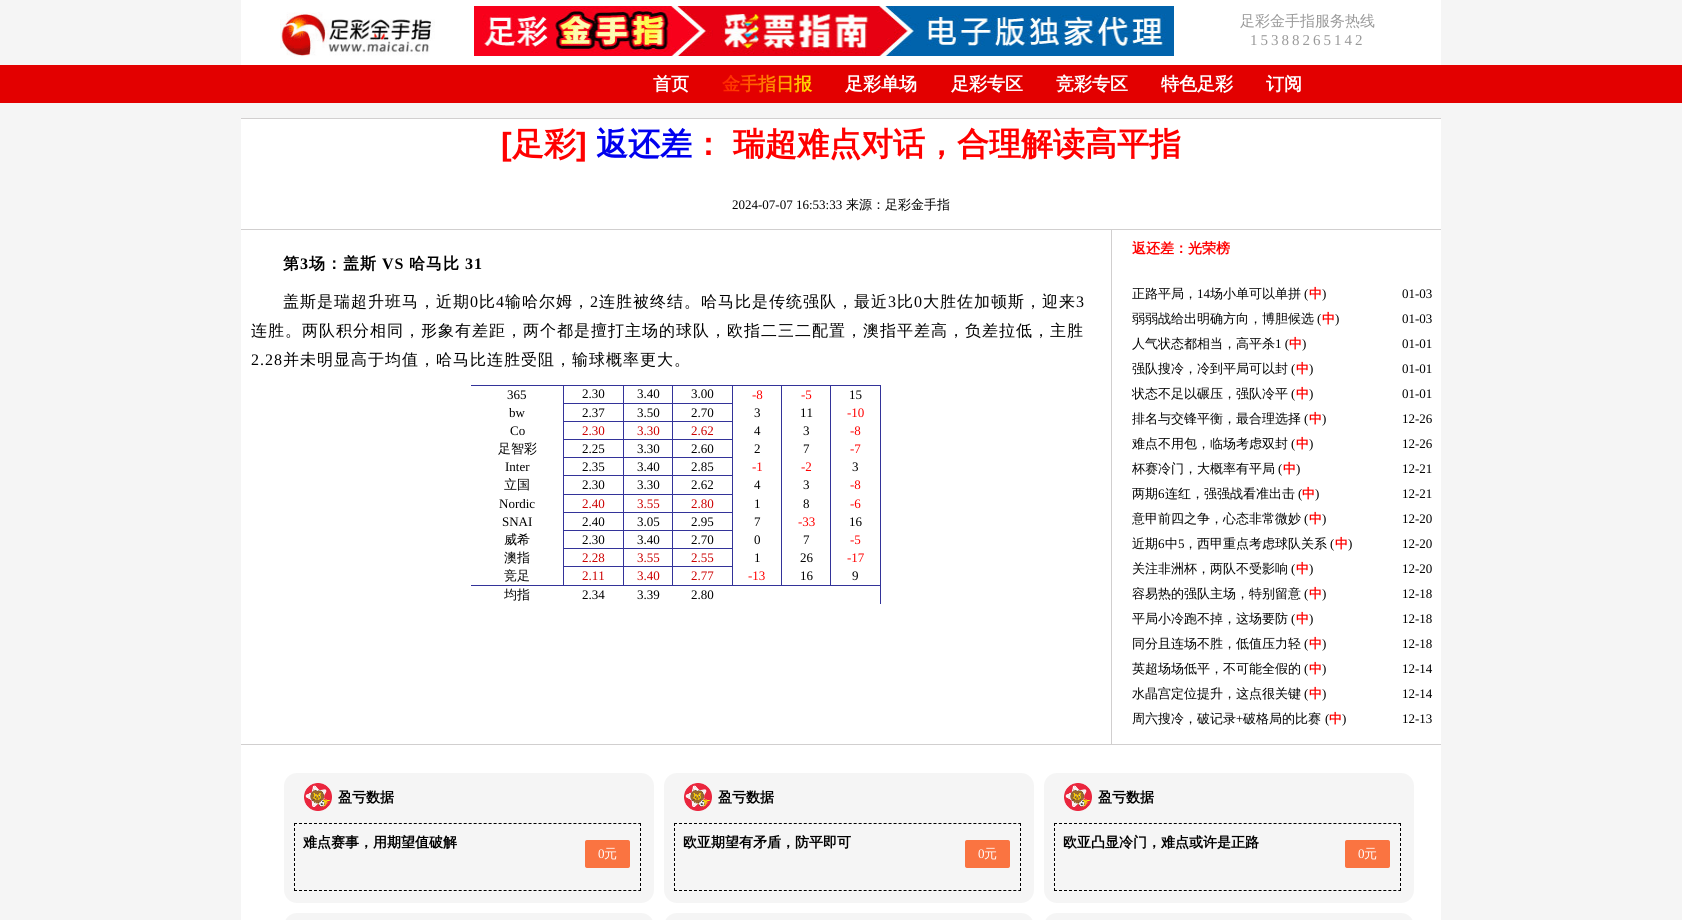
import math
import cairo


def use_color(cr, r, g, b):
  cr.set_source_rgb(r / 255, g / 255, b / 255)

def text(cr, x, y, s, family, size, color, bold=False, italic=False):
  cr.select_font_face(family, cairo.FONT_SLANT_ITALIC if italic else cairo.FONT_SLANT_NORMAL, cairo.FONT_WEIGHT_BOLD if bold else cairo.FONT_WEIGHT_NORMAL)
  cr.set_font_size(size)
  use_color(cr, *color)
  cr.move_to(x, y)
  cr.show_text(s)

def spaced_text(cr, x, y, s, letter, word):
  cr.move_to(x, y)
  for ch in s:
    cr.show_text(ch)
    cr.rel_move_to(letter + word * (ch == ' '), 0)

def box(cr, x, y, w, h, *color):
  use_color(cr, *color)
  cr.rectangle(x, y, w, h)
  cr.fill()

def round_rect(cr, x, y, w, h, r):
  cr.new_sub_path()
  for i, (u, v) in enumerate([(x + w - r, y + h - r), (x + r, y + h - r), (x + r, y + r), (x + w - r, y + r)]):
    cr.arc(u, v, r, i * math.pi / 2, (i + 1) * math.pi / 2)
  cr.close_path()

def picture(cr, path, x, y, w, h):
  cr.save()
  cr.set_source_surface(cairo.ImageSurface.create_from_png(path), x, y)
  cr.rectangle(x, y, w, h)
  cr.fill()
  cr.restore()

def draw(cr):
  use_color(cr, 245, 245, 245)
  cr.paint()
  box(cr, 241, 0, 1200, 65, 255, 255, 255)
  picture(cr, "img_01.png", 280, 12, 155, 45)
  picture(cr, "img_02.png", 474, 6, 700, 50)
  box(cr, 0, 65, 1682, 38, 227, 0, 0)
  box(cr, 241, 119, 1200, 801, 255, 255, 255)
  box(cr, 241, 118, 1200, 1, 209, 207, 207)
  box(cr, 241, 229, 1200, 1, 209, 207, 207)
  box(cr, 241, 744, 1200, 1, 209, 207, 207)
  box(cr, 830, 385, 51, 1, 51, 51, 153)
  box(cr, 471, 585, 410, 1, 51, 51, 153)
  box(cr, 830, 403, 1, 183, 51, 51, 153)
  box(cr, 830, 385, 1, 19, 51, 51, 153)
  box(cr, 781, 385, 50, 1, 51, 51, 153)
  box(cr, 781, 403, 1, 183, 51, 51, 153)
  box(cr, 781, 385, 1, 19, 51, 51, 153)
  box(cr, 732, 385, 50, 1, 51, 51, 153)
  box(cr, 732, 566, 1, 20, 51, 51, 153)
  box(cr, 672, 566, 61, 1, 51, 51, 153)
  box(cr, 732, 548, 1, 19, 51, 51, 153)
  box(cr, 672, 548, 61, 1, 51, 51, 153)
  box(cr, 732, 530, 1, 19, 51, 51, 153)
  box(cr, 672, 530, 61, 1, 51, 51, 153)
  box(cr, 732, 512, 1, 19, 51, 51, 153)
  box(cr, 672, 512, 61, 1, 51, 51, 153)
  box(cr, 732, 494, 1, 19, 51, 51, 153)
  box(cr, 672, 494, 61, 1, 51, 51, 153)
  box(cr, 732, 475, 1, 20, 51, 51, 153)
  box(cr, 672, 475, 61, 1, 51, 51, 153)
  box(cr, 732, 457, 1, 19, 51, 51, 153)
  box(cr, 672, 457, 61, 1, 51, 51, 153)
  box(cr, 732, 439, 1, 19, 51, 51, 153)
  box(cr, 672, 439, 61, 1, 51, 51, 153)
  box(cr, 732, 421, 1, 19, 51, 51, 153)
  box(cr, 672, 421, 61, 1, 51, 51, 153)
  box(cr, 732, 403, 1, 19, 51, 51, 153)
  box(cr, 672, 403, 61, 1, 51, 51, 153)
  box(cr, 732, 385, 1, 19, 51, 51, 153)
  box(cr, 672, 385, 61, 1, 51, 51, 153)
  box(cr, 672, 566, 1, 20, 51, 51, 153)
  box(cr, 623, 566, 50, 1, 51, 51, 153)
  box(cr, 672, 548, 1, 19, 51, 51, 153)
  box(cr, 623, 548, 50, 1, 51, 51, 153)
  box(cr, 672, 530, 1, 19, 51, 51, 153)
  box(cr, 623, 530, 50, 1, 51, 51, 153)
  box(cr, 672, 512, 1, 19, 51, 51, 153)
  box(cr, 623, 512, 50, 1, 51, 51, 153)
  box(cr, 672, 494, 1, 19, 51, 51, 153)
  box(cr, 623, 494, 50, 1, 51, 51, 153)
  box(cr, 672, 475, 1, 20, 51, 51, 153)
  box(cr, 623, 475, 50, 1, 51, 51, 153)
  box(cr, 672, 457, 1, 19, 51, 51, 153)
  box(cr, 623, 457, 50, 1, 51, 51, 153)
  box(cr, 672, 439, 1, 19, 51, 51, 153)
  box(cr, 623, 439, 50, 1, 51, 51, 153)
  box(cr, 672, 421, 1, 19, 51, 51, 153)
  box(cr, 623, 421, 50, 1, 51, 51, 153)
  box(cr, 672, 403, 1, 19, 51, 51, 153)
  box(cr, 623, 403, 50, 1, 51, 51, 153)
  box(cr, 672, 385, 1, 19, 51, 51, 153)
  box(cr, 623, 385, 50, 1, 51, 51, 153)
  box(cr, 623, 566, 1, 20, 51, 51, 153)
  box(cr, 563, 566, 61, 1, 51, 51, 153)
  box(cr, 623, 548, 1, 19, 51, 51, 153)
  box(cr, 563, 548, 61, 1, 51, 51, 153)
  box(cr, 623, 530, 1, 19, 51, 51, 153)
  box(cr, 563, 530, 61, 1, 51, 51, 153)
  box(cr, 623, 512, 1, 19, 51, 51, 153)
  box(cr, 563, 512, 61, 1, 51, 51, 153)
  box(cr, 623, 494, 1, 19, 51, 51, 153)
  box(cr, 563, 494, 61, 1, 51, 51, 153)
  box(cr, 623, 475, 1, 20, 51, 51, 153)
  box(cr, 563, 475, 61, 1, 51, 51, 153)
  box(cr, 623, 457, 1, 19, 51, 51, 153)
  box(cr, 563, 457, 61, 1, 51, 51, 153)
  box(cr, 623, 439, 1, 19, 51, 51, 153)
  box(cr, 563, 439, 61, 1, 51, 51, 153)
  box(cr, 623, 421, 1, 19, 51, 51, 153)
  box(cr, 563, 421, 61, 1, 51, 51, 153)
  box(cr, 623, 403, 1, 19, 51, 51, 153)
  box(cr, 563, 403, 61, 1, 51, 51, 153)
  box(cr, 623, 385, 1, 19, 51, 51, 153)
  box(cr, 563, 385, 61, 1, 51, 51, 153)
  box(cr, 563, 566, 1, 20, 51, 51, 153)
  box(cr, 563, 548, 1, 19, 51, 51, 153)
  box(cr, 563, 530, 1, 19, 51, 51, 153)
  box(cr, 563, 512, 1, 19, 51, 51, 153)
  box(cr, 563, 494, 1, 19, 51, 51, 153)
  box(cr, 563, 475, 1, 20, 51, 51, 153)
  box(cr, 563, 457, 1, 19, 51, 51, 153)
  box(cr, 563, 439, 1, 19, 51, 51, 153)
  box(cr, 563, 421, 1, 19, 51, 51, 153)
  box(cr, 563, 403, 1, 19, 51, 51, 153)
  box(cr, 563, 385, 1, 19, 51, 51, 153)
  box(cr, 471, 385, 93, 1, 51, 51, 153)
  box(cr, 880, 403, 1, 201, 51, 51, 153)
  box(cr, 880, 385, 1, 19, 51, 51, 153)
  box(cr, 1111, 230, 1, 514, 209, 207, 207)
  use_color(cr, 245, 245, 245)
  round_rect(cr, 284, 773, 370, 130, 13)
  cr.fill()
  picture(cr, "img_03.png", 304, 783, 28, 28)
  cr.new_path()
  cr.move_to(294, 823.5)
  cr.line_to(641, 823.5)
  use_color(cr, 0, 0, 0)
  cr.set_line_width(1)
  cr.set_dash([3, 1.99])
  cr.stroke()
  cr.new_path()
  cr.move_to(640.5, 823)
  cr.line_to(640.5, 891)
  cr.set_dash([3, 2])
  cr.stroke()
  cr.new_path()
  cr.move_to(294, 890.5)
  cr.line_to(641, 890.5)
  cr.set_dash([3, 1.99])
  cr.stroke()
  cr.new_path()
  cr.move_to(294.5, 823)
  cr.line_to(294.5, 891)
  cr.set_dash([3, 2])
  cr.stroke()
  use_color(cr, 250, 116, 65)
  round_rect(cr, 585, 840, 45, 28, 2)
  cr.fill()
  use_color(cr, 245, 245, 245)
  round_rect(cr, 664, 773, 370, 130, 13)
  cr.fill()
  picture(cr, "img_04.png", 684, 783, 28, 28)
  cr.new_path()
  cr.move_to(674, 823.5)
  cr.line_to(1021, 823.5)
  use_color(cr, 0, 0, 0)
  cr.set_dash([3, 1.99])
  cr.stroke()
  cr.new_path()
  cr.move_to(1020.5, 823)
  cr.line_to(1020.5, 891)
  cr.set_dash([3, 2])
  cr.stroke()
  cr.new_path()
  cr.move_to(674, 890.5)
  cr.line_to(1021, 890.5)
  cr.set_dash([3, 1.99])
  cr.stroke()
  cr.new_path()
  cr.move_to(674.5, 823)
  cr.line_to(674.5, 891)
  cr.set_dash([3, 2])
  cr.stroke()
  use_color(cr, 250, 116, 65)
  round_rect(cr, 965, 840, 45, 28, 2)
  cr.fill()
  use_color(cr, 245, 245, 245)
  round_rect(cr, 1044, 773, 370, 130, 13)
  cr.fill()
  picture(cr, "img_03.png", 1064, 783, 28, 28)
  cr.new_path()
  cr.move_to(1054, 823.5)
  cr.line_to(1401, 823.5)
  use_color(cr, 0, 0, 0)
  cr.set_dash([3, 1.99])
  cr.stroke()
  cr.new_path()
  cr.move_to(1400.5, 823)
  cr.line_to(1400.5, 891)
  cr.set_dash([3, 2])
  cr.stroke()
  cr.new_path()
  cr.move_to(1054, 890.5)
  cr.line_to(1401, 890.5)
  cr.set_dash([3, 1.99])
  cr.stroke()
  cr.new_path()
  cr.move_to(1054.5, 823)
  cr.line_to(1054.5, 891)
  cr.set_dash([3, 2])
  cr.stroke()
  use_color(cr, 250, 116, 65)
  round_rect(cr, 1345, 840, 45, 28, 2)
  cr.fill()
  use_color(cr, 245, 245, 245)
  round_rect(cr, 284, 913, 370, 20, 13)
  cr.fill()
  round_rect(cr, 664, 913, 370, 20, 13)
  cr.fill()
  round_rect(cr, 1044, 913, 370, 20, 13)
  cr.fill()
  text(cr, 1240, 26, "足彩金手指服务热线", "WenQuanYi Zen Hei Medium", 15, (153, 153, 153))
  cr.select_font_face("Liberation Serif")
  spaced_text(cr, 1250, 45, "15388265142", 3, 0)
  text(cr, 653, 90, "首页", "WenQuanYi Zen Hei", 18, (255, 255, 255), bold=True)
  gradient = cairo.LinearGradient(707, 84, 827, 84)
  gradient.add_color_stop_rgba(0, 1, 0, 0, 1)
  gradient.add_color_stop_rgba(1, 1, 1, 0, 1)
  cr.set_source(gradient)
  cr.move_to(722, 90)
  cr.show_text("金手指日报")
  text(cr, 845, 90, "足彩单场", "WenQuanYi Zen Hei", 18, (255, 255, 255), bold=True)
  text(cr, 951, 90, "足彩专区", "WenQuanYi Zen Hei", 18, (255, 255, 255), bold=True)
  text(cr, 1056, 90, "竞彩专区", "WenQuanYi Zen Hei", 18, (255, 255, 255), bold=True)
  text(cr, 1161, 90, "特色足彩", "WenQuanYi Zen Hei", 18, (255, 255, 255), bold=True)
  text(cr, 1266, 90, "订阅", "WenQuanYi Zen Hei", 18, (255, 255, 255), bold=True)
  text(cr, 501, 155, "[", "Liberation Sans", 32, (255, 0, 0), bold=True)
  text(cr, 512, 155, "足彩", "WenQuanYi Zen Hei", 32, (255, 0, 0), bold=True)
  text(cr, 576, 155, "]", "Liberation Sans", 32, (255, 0, 0), bold=True)
  text(cr, 596, 155, "返还差", "WenQuanYi Zen Hei", 32, (0, 0, 238), bold=True)
  text(cr, 692, 155, "：", "WenQuanYi Zen Hei", 32, (255, 0, 0), bold=True)
  text(cr, 733, 155, "瑞超难点对话，合理解读高平指", "WenQuanYi Zen Hei", 32, (255, 0, 0), bold=True)
  text(cr, 732, 209, "2024-07-07 16:53:33", "Liberation Serif", 13, (0, 0, 0))
  text(cr, 846, 209, "来源：足彩金手指", "WenQuanYi Zen Hei Medium", 13, (0, 0, 0))
  cr.select_font_face("WenQuanYi Zen Hei", cairo.FONT_SLANT_NORMAL, cairo.FONT_WEIGHT_BOLD)
  cr.set_font_size(16)
  spaced_text(cr, 283, 269, "第", 1, 0)
  cr.select_font_face("Liberation Serif", cairo.FONT_SLANT_NORMAL, cairo.FONT_WEIGHT_BOLD)
  spaced_text(cr, 300, 269, "3", 1, 0)
  cr.select_font_face("WenQuanYi Zen Hei", cairo.FONT_SLANT_NORMAL, cairo.FONT_WEIGHT_BOLD)
  spaced_text(cr, 309, 269, "场：盖斯", 1, 0)
  cr.select_font_face("Liberation Serif", cairo.FONT_SLANT_NORMAL, cairo.FONT_WEIGHT_BOLD)
  spaced_text(cr, 382, 269, "VS", 1, 0)
  cr.select_font_face("WenQuanYi Zen Hei", cairo.FONT_SLANT_NORMAL, cairo.FONT_WEIGHT_BOLD)
  spaced_text(cr, 409, 269, "哈马比", 1, 0)
  cr.select_font_face("Liberation Serif", cairo.FONT_SLANT_NORMAL, cairo.FONT_WEIGHT_BOLD)
  spaced_text(cr, 465, 269, "31", 1, 0)
  cr.select_font_face("WenQuanYi Zen Hei Medium")
  spaced_text(cr, 283, 307, "盖斯是瑞超升班马，近期", 1, 0)
  cr.select_font_face("Liberation Serif")
  spaced_text(cr, 470, 307, "0", 1, 0)
  cr.select_font_face("WenQuanYi Zen Hei Medium")
  spaced_text(cr, 479, 307, "比", 1, 0)
  cr.select_font_face("Liberation Serif")
  spaced_text(cr, 496, 307, "4", 1, 0)
  cr.select_font_face("WenQuanYi Zen Hei Medium")
  spaced_text(cr, 505, 307, "输哈尔姆，", 1, 0)
  cr.select_font_face("Liberation Serif")
  spaced_text(cr, 590, 307, "2", 1, 0)
  cr.select_font_face("WenQuanYi Zen Hei Medium")
  spaced_text(cr, 599, 307, "连胜被终结。哈马比是传统强队，最近", 1, 0)
  cr.select_font_face("Liberation Serif")
  spaced_text(cr, 888, 307, "3", 1, 0)
  cr.select_font_face("WenQuanYi Zen Hei Medium")
  spaced_text(cr, 897, 307, "比", 1, 0)
  cr.select_font_face("Liberation Serif")
  spaced_text(cr, 914, 307, "0", 1, 0)
  cr.select_font_face("WenQuanYi Zen Hei Medium")
  spaced_text(cr, 923, 307, "大胜佐加顿斯，迎来", 1, 0)
  cr.select_font_face("Liberation Serif")
  spaced_text(cr, 1076, 307, "3", 1, 0)
  cr.select_font_face("WenQuanYi Zen Hei Medium")
  spaced_text(cr, 251, 336, "连胜。两队积分相同，形象有差距，两个都是擅打主场的球队，欧指二三二配置，澳指平差高，负差拉低，主胜", 1, 0)
  cr.select_font_face("Liberation Serif")
  spaced_text(cr, 251, 365, "2.28", 1, 0)
  cr.select_font_face("WenQuanYi Zen Hei Medium")
  spaced_text(cr, 283, 365, "并未明显高于均值，哈马比连胜受阻，输球概率更大。", 1, 0)
  text(cr, 507, 399, "365", "Liberation Serif", 13, (0, 0, 0))
  text(cr, 582, 398, "2.30", "Liberation Serif", 13, (0, 0, 0))
  text(cr, 637, 398, "3.40", "Liberation Serif", 13, (0, 0, 0))
  text(cr, 691, 398, "3.00", "Liberation Serif", 13, (0, 0, 0))
  text(cr, 752, 399, "-8", "Liberation Serif", 13, (255, 0, 0))
  text(cr, 801, 399, "-5", "Liberation Serif", 13, (255, 0, 0))
  text(cr, 849, 399, "15", "Liberation Serif", 13, (0, 0, 0))
  text(cr, 509, 417, "bw", "Liberation Serif", 13, (0, 0, 0))
  text(cr, 582, 417, "2.37", "Liberation Serif", 13, (0, 0, 0))
  text(cr, 637, 417, "3.50", "Liberation Serif", 13, (0, 0, 0))
  text(cr, 691, 417, "2.70", "Liberation Serif", 13, (0, 0, 0))
  text(cr, 754, 417, "3", "Liberation Serif", 13, (0, 0, 0))
  text(cr, 800, 417, "11", "Liberation Serif", 13, (0, 0, 0))
  text(cr, 847, 417, "-10", "Liberation Serif", 13, (255, 0, 0))
  text(cr, 510, 435, "Co", "Liberation Serif", 13, (0, 0, 0))
  text(cr, 582, 435, "2.30", "Liberation Serif", 13, (204, 0, 0))
  text(cr, 637, 435, "3.30", "Liberation Serif", 13, (204, 0, 0))
  text(cr, 691, 435, "2.62", "Liberation Serif", 13, (204, 0, 0))
  text(cr, 754, 435, "4", "Liberation Serif", 13, (0, 0, 0))
  text(cr, 803, 435, "3", "Liberation Serif", 13, (0, 0, 0))
  text(cr, 850, 435, "-8", "Liberation Serif", 13, (255, 0, 0))
  text(cr, 498, 453, "足智彩", "WenQuanYi Zen Hei Medium", 13, (0, 0, 0))
  text(cr, 582, 453, "2.25", "Liberation Serif", 13, (0, 0, 0))
  text(cr, 637, 453, "3.30", "Liberation Serif", 13, (0, 0, 0))
  text(cr, 691, 453, "2.60", "Liberation Serif", 13, (0, 0, 0))
  text(cr, 754, 453, "2", "Liberation Serif", 13, (0, 0, 0))
  text(cr, 803, 453, "7", "Liberation Serif", 13, (0, 0, 0))
  text(cr, 850, 453, "-7", "Liberation Serif", 13, (255, 0, 0))
  text(cr, 505, 471, "Inter", "Liberation Serif", 13, (0, 0, 0))
  text(cr, 582, 471, "2.35", "Liberation Serif", 13, (0, 0, 0))
  text(cr, 637, 471, "3.40", "Liberation Serif", 13, (0, 0, 0))
  text(cr, 691, 471, "2.85", "Liberation Serif", 13, (0, 0, 0))
  text(cr, 752, 471, "-1", "Liberation Serif", 13, (255, 0, 0))
  text(cr, 801, 471, "-2", "Liberation Serif", 13, (255, 0, 0))
  text(cr, 852, 471, "3", "Liberation Serif", 13, (0, 0, 0))
  text(cr, 504, 489, "立国", "WenQuanYi Zen Hei Medium", 13, (0, 0, 0))
  text(cr, 582, 489, "2.30", "Liberation Serif", 13, (0, 0, 0))
  text(cr, 637, 489, "3.30", "Liberation Serif", 13, (0, 0, 0))
  text(cr, 691, 489, "2.62", "Liberation Serif", 13, (0, 0, 0))
  text(cr, 754, 489, "4", "Liberation Serif", 13, (0, 0, 0))
  text(cr, 803, 489, "3", "Liberation Serif", 13, (0, 0, 0))
  text(cr, 850, 489, "-8", "Liberation Serif", 13, (255, 0, 0))
  text(cr, 499, 508, "Nordic", "Liberation Serif", 13, (0, 0, 0))
  text(cr, 582, 508, "2.40", "Liberation Serif", 13, (204, 0, 0))
  text(cr, 637, 508, "3.55", "Liberation Serif", 13, (204, 0, 0))
  text(cr, 691, 508, "2.80", "Liberation Serif", 13, (204, 0, 0))
  text(cr, 754, 508, "1", "Liberation Serif", 13, (0, 0, 0))
  text(cr, 803, 508, "8", "Liberation Serif", 13, (0, 0, 0))
  text(cr, 850, 508, "-6", "Liberation Serif", 13, (255, 0, 0))
  text(cr, 502, 526, "SNAI", "Liberation Serif", 13, (0, 0, 0))
  text(cr, 582, 526, "2.40", "Liberation Serif", 13, (0, 0, 0))
  text(cr, 637, 526, "3.05", "Liberation Serif", 13, (0, 0, 0))
  text(cr, 691, 526, "2.95", "Liberation Serif", 13, (0, 0, 0))
  text(cr, 754, 526, "7", "Liberation Serif", 13, (0, 0, 0))
  text(cr, 798, 526, "-33", "Liberation Serif", 13, (255, 0, 0))
  text(cr, 849, 526, "16", "Liberation Serif", 13, (0, 0, 0))
  text(cr, 504, 544, "威希", "WenQuanYi Zen Hei Medium", 13, (0, 0, 0))
  text(cr, 582, 544, "2.30", "Liberation Serif", 13, (0, 0, 0))
  text(cr, 637, 544, "3.40", "Liberation Serif", 13, (0, 0, 0))
  text(cr, 691, 544, "2.70", "Liberation Serif", 13, (0, 0, 0))
  text(cr, 754, 544, "0", "Liberation Serif", 13, (0, 0, 0))
  text(cr, 803, 544, "7", "Liberation Serif", 13, (0, 0, 0))
  text(cr, 850, 544, "-5", "Liberation Serif", 13, (255, 0, 0))
  text(cr, 504, 562, "澳指", "WenQuanYi Zen Hei Medium", 13, (0, 0, 0))
  text(cr, 582, 562, "2.28", "Liberation Serif", 13, (204, 0, 0))
  text(cr, 637, 562, "3.55", "Liberation Serif", 13, (204, 0, 0))
  text(cr, 691, 562, "2.55", "Liberation Serif", 13, (204, 0, 0))
  text(cr, 754, 562, "1", "Liberation Serif", 13, (0, 0, 0))
  text(cr, 800, 562, "26", "Liberation Serif", 13, (0, 0, 0))
  text(cr, 847, 562, "-17", "Liberation Serif", 13, (255, 0, 0))
  text(cr, 504, 580, "竞足", "WenQuanYi Zen Hei Medium", 13, (0, 0, 0))
  text(cr, 582, 580, "2.11", "Liberation Serif", 13, (204, 0, 0))
  text(cr, 637, 580, "3.40", "Liberation Serif", 13, (204, 0, 0))
  text(cr, 691, 580, "2.77", "Liberation Serif", 13, (204, 0, 0))
  text(cr, 748, 580, "-13", "Liberation Serif", 13, (255, 0, 0))
  text(cr, 800, 580, "16", "Liberation Serif", 13, (0, 0, 0))
  text(cr, 852, 580, "9", "Liberation Serif", 13, (0, 0, 0))
  text(cr, 504, 599, "均指", "WenQuanYi Zen Hei Medium", 13, (0, 0, 0))
  text(cr, 582, 599, "2.34", "Liberation Serif", 13, (0, 0, 0))
  text(cr, 637, 599, "3.39", "Liberation Serif", 13, (0, 0, 0))
  text(cr, 691, 599, "2.80", "Liberation Serif", 13, (0, 0, 0))
  text(cr, 1132, 253, "返还差：光荣榜", "WenQuanYi Zen Hei", 14, (255, 0, 0), bold=True)
  text(cr, 1132, 298, "正路平局，", "WenQuanYi Zen Hei Medium", 13, (0, 0, 0))
  text(cr, 1197, 298, "14", "Liberation Serif", 13, (0, 0, 0))
  text(cr, 1210, 298, "场小单可以单拼", "WenQuanYi Zen Hei Medium", 13, (0, 0, 0))
  text(cr, 1304, 298, "(", "Liberation Serif", 13, (0, 0, 0))
  text(cr, 1309, 298, "中", "WenQuanYi Zen Hei", 13, (255, 0, 0), bold=True)
  text(cr, 1322, 298, ")", "Liberation Serif", 13, (0, 0, 0))
  text(cr, 1402, 298, "01-03", "Liberation Serif", 13, (0, 0, 0))
  text(cr, 1132, 323, "弱弱战给出明确方向，博胆候选", "WenQuanYi Zen Hei Medium", 13, (0, 0, 0))
  text(cr, 1317, 323, "(", "Liberation Serif", 13, (0, 0, 0))
  text(cr, 1322, 323, "中", "WenQuanYi Zen Hei", 13, (255, 0, 0), bold=True)
  text(cr, 1335, 323, ")", "Liberation Serif", 13, (0, 0, 0))
  text(cr, 1402, 323, "01-03", "Liberation Serif", 13, (0, 0, 0))
  text(cr, 1132, 348, "人气状态都相当，高平杀", "WenQuanYi Zen Hei Medium", 13, (0, 0, 0))
  text(cr, 1275, 348, "1 (", "Liberation Serif", 13, (0, 0, 0))
  text(cr, 1289, 348, "中", "WenQuanYi Zen Hei", 13, (255, 0, 0), bold=True)
  text(cr, 1302, 348, ")", "Liberation Serif", 13, (0, 0, 0))
  text(cr, 1402, 348, "01-01", "Liberation Serif", 13, (0, 0, 0))
  text(cr, 1132, 373, "强队搜冷，冷到平局可以封", "WenQuanYi Zen Hei Medium", 13, (0, 0, 0))
  text(cr, 1291, 373, "(", "Liberation Serif", 13, (0, 0, 0))
  text(cr, 1296, 373, "中", "WenQuanYi Zen Hei", 13, (255, 0, 0), bold=True)
  text(cr, 1309, 373, ")", "Liberation Serif", 13, (0, 0, 0))
  text(cr, 1402, 373, "01-01", "Liberation Serif", 13, (0, 0, 0))
  text(cr, 1132, 398, "状态不足以碾压，强队冷平", "WenQuanYi Zen Hei Medium", 13, (0, 0, 0))
  text(cr, 1291, 398, "(", "Liberation Serif", 13, (0, 0, 0))
  text(cr, 1296, 398, "中", "WenQuanYi Zen Hei", 13, (255, 0, 0), bold=True)
  text(cr, 1309, 398, ")", "Liberation Serif", 13, (0, 0, 0))
  text(cr, 1402, 398, "01-01", "Liberation Serif", 13, (0, 0, 0))
  text(cr, 1132, 423, "排名与交锋平衡，最合理选择", "WenQuanYi Zen Hei Medium", 13, (0, 0, 0))
  text(cr, 1304, 423, "(", "Liberation Serif", 13, (0, 0, 0))
  text(cr, 1309, 423, "中", "WenQuanYi Zen Hei", 13, (255, 0, 0), bold=True)
  text(cr, 1322, 423, ")", "Liberation Serif", 13, (0, 0, 0))
  text(cr, 1402, 423, "12-26", "Liberation Serif", 13, (0, 0, 0))
  text(cr, 1132, 448, "难点不用包，临场考虑双封", "WenQuanYi Zen Hei Medium", 13, (0, 0, 0))
  text(cr, 1291, 448, "(", "Liberation Serif", 13, (0, 0, 0))
  text(cr, 1296, 448, "中", "WenQuanYi Zen Hei", 13, (255, 0, 0), bold=True)
  text(cr, 1309, 448, ")", "Liberation Serif", 13, (0, 0, 0))
  text(cr, 1402, 448, "12-26", "Liberation Serif", 13, (0, 0, 0))
  text(cr, 1132, 473, "杯赛冷门，大概率有平局", "WenQuanYi Zen Hei Medium", 13, (0, 0, 0))
  text(cr, 1278, 473, "(", "Liberation Serif", 13, (0, 0, 0))
  text(cr, 1283, 473, "中", "WenQuanYi Zen Hei", 13, (255, 0, 0), bold=True)
  text(cr, 1296, 473, ")", "Liberation Serif", 13, (0, 0, 0))
  text(cr, 1402, 473, "12-21", "Liberation Serif", 13, (0, 0, 0))
  text(cr, 1132, 498, "两期", "WenQuanYi Zen Hei Medium", 13, (0, 0, 0))
  text(cr, 1158, 498, "6", "Liberation Serif", 13, (0, 0, 0))
  text(cr, 1165, 498, "连红，强强战看准出击", "WenQuanYi Zen Hei Medium", 13, (0, 0, 0))
  text(cr, 1298, 498, "(", "Liberation Serif", 13, (0, 0, 0))
  text(cr, 1302, 498, "中", "WenQuanYi Zen Hei", 13, (255, 0, 0), bold=True)
  text(cr, 1315, 498, ")", "Liberation Serif", 13, (0, 0, 0))
  text(cr, 1402, 498, "12-21", "Liberation Serif", 13, (0, 0, 0))
  text(cr, 1132, 523, "意甲前四之争，心态非常微妙", "WenQuanYi Zen Hei Medium", 13, (0, 0, 0))
  text(cr, 1304, 523, "(", "Liberation Serif", 13, (0, 0, 0))
  text(cr, 1309, 523, "中", "WenQuanYi Zen Hei", 13, (255, 0, 0), bold=True)
  text(cr, 1322, 523, ")", "Liberation Serif", 13, (0, 0, 0))
  text(cr, 1402, 523, "12-20", "Liberation Serif", 13, (0, 0, 0))
  text(cr, 1132, 548, "近期", "WenQuanYi Zen Hei Medium", 13, (0, 0, 0))
  text(cr, 1158, 548, "6", "Liberation Serif", 13, (0, 0, 0))
  text(cr, 1165, 548, "中", "WenQuanYi Zen Hei Medium", 13, (0, 0, 0))
  text(cr, 1178, 548, "5", "Liberation Serif", 13, (0, 0, 0))
  text(cr, 1184, 548, "，西甲重点考虑球队关系", "WenQuanYi Zen Hei Medium", 13, (0, 0, 0))
  text(cr, 1330, 548, "(", "Liberation Serif", 13, (0, 0, 0))
  text(cr, 1335, 548, "中", "WenQuanYi Zen Hei", 13, (255, 0, 0), bold=True)
  text(cr, 1348, 548, ")", "Liberation Serif", 13, (0, 0, 0))
  text(cr, 1402, 548, "12-20", "Liberation Serif", 13, (0, 0, 0))
  text(cr, 1132, 573, "关注非洲杯，两队不受影响", "WenQuanYi Zen Hei Medium", 13, (0, 0, 0))
  text(cr, 1291, 573, "(", "Liberation Serif", 13, (0, 0, 0))
  text(cr, 1296, 573, "中", "WenQuanYi Zen Hei", 13, (255, 0, 0), bold=True)
  text(cr, 1309, 573, ")", "Liberation Serif", 13, (0, 0, 0))
  text(cr, 1402, 573, "12-20", "Liberation Serif", 13, (0, 0, 0))
  text(cr, 1132, 598, "容易热的强队主场，特别留意", "WenQuanYi Zen Hei Medium", 13, (0, 0, 0))
  text(cr, 1304, 598, "(", "Liberation Serif", 13, (0, 0, 0))
  text(cr, 1309, 598, "中", "WenQuanYi Zen Hei", 13, (255, 0, 0), bold=True)
  text(cr, 1322, 598, ")", "Liberation Serif", 13, (0, 0, 0))
  text(cr, 1402, 598, "12-18", "Liberation Serif", 13, (0, 0, 0))
  text(cr, 1132, 623, "平局小冷跑不掉，这场要防", "WenQuanYi Zen Hei Medium", 13, (0, 0, 0))
  text(cr, 1291, 623, "(", "Liberation Serif", 13, (0, 0, 0))
  text(cr, 1296, 623, "中", "WenQuanYi Zen Hei", 13, (255, 0, 0), bold=True)
  text(cr, 1309, 623, ")", "Liberation Serif", 13, (0, 0, 0))
  text(cr, 1402, 623, "12-18", "Liberation Serif", 13, (0, 0, 0))
  text(cr, 1132, 648, "同分且连场不胜，低值压力轻", "WenQuanYi Zen Hei Medium", 13, (0, 0, 0))
  text(cr, 1304, 648, "(", "Liberation Serif", 13, (0, 0, 0))
  text(cr, 1309, 648, "中", "WenQuanYi Zen Hei", 13, (255, 0, 0), bold=True)
  text(cr, 1322, 648, ")", "Liberation Serif", 13, (0, 0, 0))
  text(cr, 1402, 648, "12-18", "Liberation Serif", 13, (0, 0, 0))
  text(cr, 1132, 673, "英超场场低平，不可能全假的", "WenQuanYi Zen Hei Medium", 13, (0, 0, 0))
  text(cr, 1304, 673, "(", "Liberation Serif", 13, (0, 0, 0))
  text(cr, 1309, 673, "中", "WenQuanYi Zen Hei", 13, (255, 0, 0), bold=True)
  text(cr, 1322, 673, ")", "Liberation Serif", 13, (0, 0, 0))
  text(cr, 1402, 673, "12-14", "Liberation Serif", 13, (0, 0, 0))
  text(cr, 1132, 698, "水晶宫定位提升，这点很关键", "WenQuanYi Zen Hei Medium", 13, (0, 0, 0))
  text(cr, 1304, 698, "(", "Liberation Serif", 13, (0, 0, 0))
  text(cr, 1309, 698, "中", "WenQuanYi Zen Hei", 13, (255, 0, 0), bold=True)
  text(cr, 1322, 698, ")", "Liberation Serif", 13, (0, 0, 0))
  text(cr, 1402, 698, "12-14", "Liberation Serif", 13, (0, 0, 0))
  text(cr, 1132, 723, "周六搜冷，破记录", "WenQuanYi Zen Hei Medium", 13, (0, 0, 0))
  text(cr, 1236, 723, "+", "Liberation Serif", 13, (0, 0, 0))
  text(cr, 1243, 723, "破格局的比赛", "WenQuanYi Zen Hei Medium", 13, (0, 0, 0))
  text(cr, 1325, 723, "(", "Liberation Serif", 13, (0, 0, 0))
  text(cr, 1329, 723, "中", "WenQuanYi Zen Hei", 13, (255, 0, 0), bold=True)
  text(cr, 1342, 723, ")", "Liberation Serif", 13, (0, 0, 0))
  text(cr, 1402, 723, "12-13", "Liberation Serif", 13, (0, 0, 0))
  text(cr, 338, 802, "盈亏数据", "WenQuanYi Zen Hei", 14, (0, 0, 0), bold=True)
  text(cr, 303, 847, "难点赛事，用期望值破解", "WenQuanYi Zen Hei", 14, (0, 0, 0), bold=True)
  text(cr, 598, 858, "0", "Liberation Serif", 13, (255, 255, 255))
  text(cr, 604, 858, "元", "WenQuanYi Zen Hei Medium", 13, (255, 255, 255))
  text(cr, 718, 802, "盈亏数据", "WenQuanYi Zen Hei", 14, (0, 0, 0), bold=True)
  text(cr, 683, 847, "欧亚期望有矛盾，防平即可", "WenQuanYi Zen Hei", 14, (0, 0, 0), bold=True)
  text(cr, 978, 858, "0", "Liberation Serif", 13, (255, 255, 255))
  text(cr, 984, 858, "元", "WenQuanYi Zen Hei Medium", 13, (255, 255, 255))
  text(cr, 1098, 802, "盈亏数据", "WenQuanYi Zen Hei", 14, (0, 0, 0), bold=True)
  text(cr, 1063, 847, "欧亚凸显冷门，难点或许是正路", "WenQuanYi Zen Hei", 14, (0, 0, 0), bold=True)
  text(cr, 1358, 858, "0", "Liberation Serif", 13, (255, 255, 255))
  text(cr, 1364, 858, "元", "WenQuanYi Zen Hei Medium", 13, (255, 255, 255))


surface = cairo.ImageSurface(cairo.FORMAT_RGB24, 1682, 920)
cr = cairo.Context(surface)
options = cairo.FontOptions()
options.set_hint_metrics(cairo.HINT_METRICS_OFF)
options.set_hint_style(cairo.HINT_STYLE_NONE)
cr.set_font_options(options)
cr.set_miter_limit(4)
draw(cr)
surface.write_to_png("out.png")
